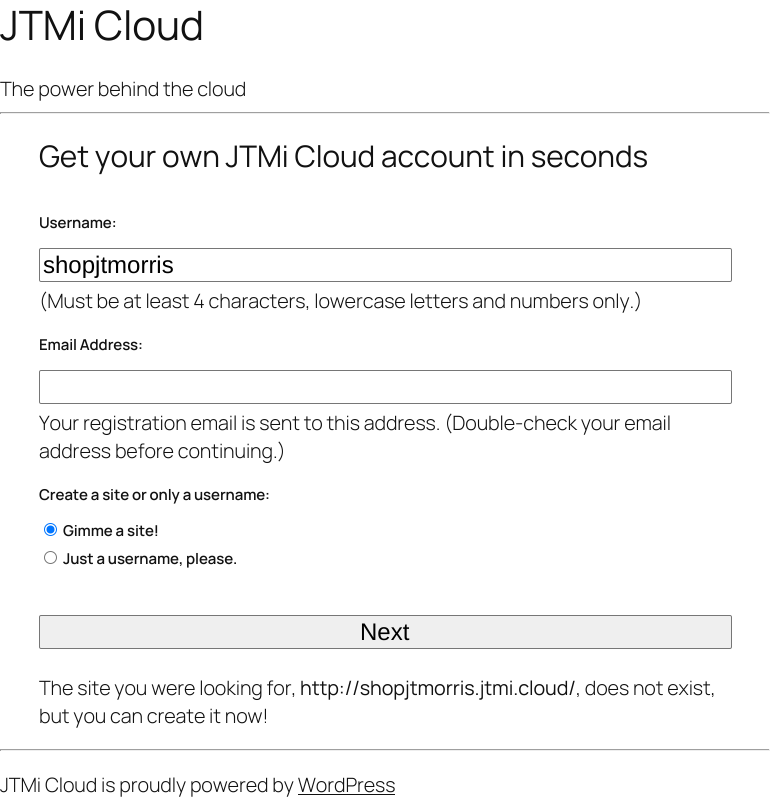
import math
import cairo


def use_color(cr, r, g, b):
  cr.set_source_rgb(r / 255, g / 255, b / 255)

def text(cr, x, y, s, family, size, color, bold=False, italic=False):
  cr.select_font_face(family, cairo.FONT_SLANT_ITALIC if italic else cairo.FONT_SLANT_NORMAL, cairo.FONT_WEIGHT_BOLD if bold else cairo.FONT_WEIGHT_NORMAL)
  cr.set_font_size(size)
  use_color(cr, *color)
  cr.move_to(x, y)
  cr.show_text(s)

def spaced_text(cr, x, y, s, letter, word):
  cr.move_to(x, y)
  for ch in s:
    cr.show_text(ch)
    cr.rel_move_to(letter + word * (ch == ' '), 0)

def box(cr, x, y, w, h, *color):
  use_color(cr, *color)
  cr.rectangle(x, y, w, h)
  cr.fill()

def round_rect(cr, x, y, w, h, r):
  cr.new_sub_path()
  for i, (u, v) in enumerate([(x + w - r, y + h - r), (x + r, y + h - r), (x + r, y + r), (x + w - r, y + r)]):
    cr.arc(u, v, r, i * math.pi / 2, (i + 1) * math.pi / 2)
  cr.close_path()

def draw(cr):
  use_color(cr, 255, 255, 255)
  cr.paint()
  box(cr, 0, 112, 770, 1, 159, 159, 159)
  box(cr, 769, 112, 1, 2, 238, 238, 238)
  box(cr, 0, 113, 770, 1, 238, 238, 238)
  box(cr, 0, 112, 1, 2, 159, 159, 159)
  round_rect(cr, 39.5, 248.5, 692, 33, 1.5)
  use_color(cr, 118, 118, 118)
  cr.set_line_width(1)
  cr.stroke()
  round_rect(cr, 39.5, 370.5, 692, 33, 1.5)
  cr.stroke()
  cr.arc(50.5, 529.5, 6, 0, 2 * math.pi)
  use_color(cr, 0, 117, 255)
  cr.stroke()
  cr.arc(50.5, 529.5, 4, 0, 2 * math.pi)
  cr.fill()
  cr.arc(50.5, 557.5, 6, 0, 2 * math.pi)
  use_color(cr, 118, 118, 118)
  cr.stroke()
  use_color(cr, 239, 239, 239)
  round_rect(cr, 39.5, 615.5, 692, 33, 1.5)
  cr.fill_preserve()
  use_color(cr, 118, 118, 118)
  cr.stroke()
  box(cr, 0, 749, 770, 1, 159, 159, 159)
  box(cr, 769, 749, 1, 2, 238, 238, 238)
  box(cr, 0, 750, 770, 1, 238, 238, 238)
  box(cr, 0, 749, 1, 2, 159, 159, 159)
  box(cr, 298, 794, 97, 1, 17, 17, 17)
  cr.select_font_face("Manrope")
  cr.set_font_size(40.5)
  spaced_text(cr, 0, 40, "JTMi Cloud", -0.1, 0)
  cr.select_font_face("Manrope Light")
  cr.set_font_size(19.75)
  spaced_text(cr, 0, 96, "The power behind the cloud", -0.1, 0)
  cr.select_font_face("Manrope")
  cr.set_font_size(29.75)
  spaced_text(cr, 39, 167, "Get your own JTMi Cloud account in seconds", -0.1, 0)
  cr.select_font_face("Manrope SemiBold")
  cr.set_font_size(15)
  spaced_text(cr, 39, 228, "Username:", -0.1, 0)
  text(cr, 43, 273, "shopjtmorris", "Liberation Sans", 24, (0, 0, 0))
  cr.select_font_face("Manrope Light")
  cr.set_font_size(19.75)
  use_color(cr, 17, 17, 17)
  spaced_text(cr, 39, 308, "(Must be at least 4 characters, lowercase letters and numbers only.)", -0.1, 0)
  cr.select_font_face("Manrope SemiBold")
  cr.set_font_size(15)
  spaced_text(cr, 39, 350, "Email Address:", -0.1, 0)
  cr.select_font_face("Manrope Light")
  cr.set_font_size(19.75)
  spaced_text(cr, 39, 430, "Your registration email is sent to this address. (Double-check your email", -0.1, 0)
  spaced_text(cr, 39, 458, "address before continuing.)", -0.1, 0)
  cr.select_font_face("Manrope SemiBold")
  cr.set_font_size(15)
  spaced_text(cr, 39, 500, "Create a site or only a username:", -0.1, 0)
  spaced_text(cr, 63, 536, "Gimme a site!", -0.1, 0)
  spaced_text(cr, 63, 564, "Just a username, please.", -0.1, 0)
  text(cr, 360, 640, "Next", "Liberation Sans", 24, (0, 0, 0))
  cr.select_font_face("Manrope Light")
  cr.set_font_size(19.75)
  use_color(cr, 17, 17, 17)
  spaced_text(cr, 39, 695, "The site you were looking for,", -0.1, 0)
  cr.select_font_face("Manrope")
  spaced_text(cr, 300, 695, "http://shopjtmorris.jtmi.cloud/", -0.1, 0)
  cr.select_font_face("Manrope Light")
  spaced_text(cr, 576, 695, ", does not exist,", -0.1, 0)
  spaced_text(cr, 39, 723, "but you can create it now!", -0.1, 0)
  spaced_text(cr, 0, 792, "JTMi Cloud is proudly powered by WordPress", -0.1, 0)


surface = cairo.ImageSurface(cairo.FORMAT_RGB24, 770, 808)
cr = cairo.Context(surface)
options = cairo.FontOptions()
options.set_hint_metrics(cairo.HINT_METRICS_OFF)
options.set_hint_style(cairo.HINT_STYLE_NONE)
cr.set_font_options(options)
cr.set_miter_limit(4)
draw(cr)
surface.write_to_png("out.png")
